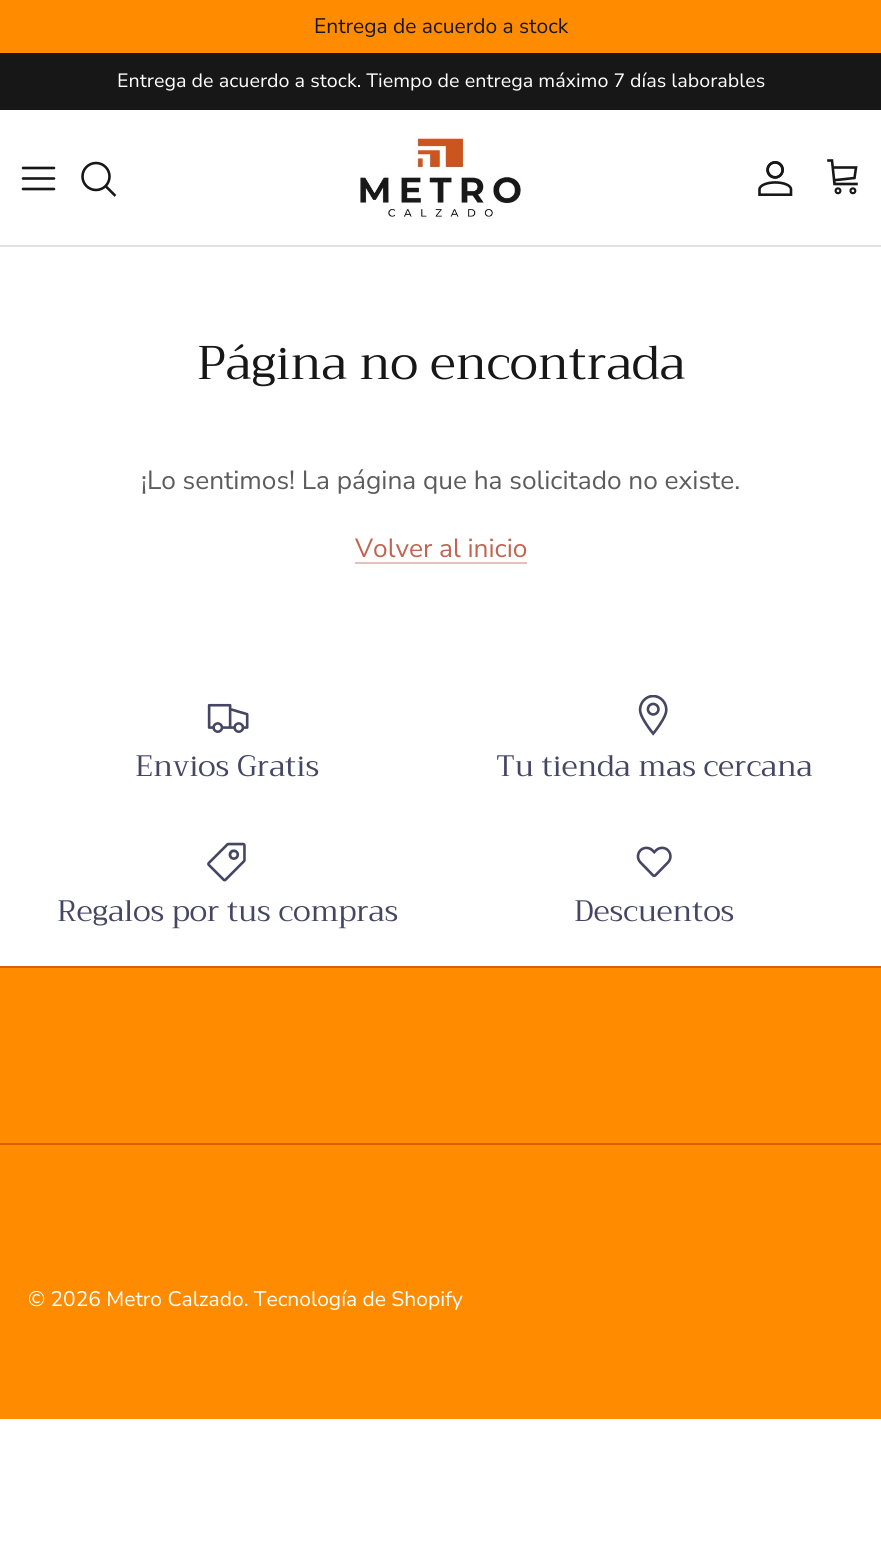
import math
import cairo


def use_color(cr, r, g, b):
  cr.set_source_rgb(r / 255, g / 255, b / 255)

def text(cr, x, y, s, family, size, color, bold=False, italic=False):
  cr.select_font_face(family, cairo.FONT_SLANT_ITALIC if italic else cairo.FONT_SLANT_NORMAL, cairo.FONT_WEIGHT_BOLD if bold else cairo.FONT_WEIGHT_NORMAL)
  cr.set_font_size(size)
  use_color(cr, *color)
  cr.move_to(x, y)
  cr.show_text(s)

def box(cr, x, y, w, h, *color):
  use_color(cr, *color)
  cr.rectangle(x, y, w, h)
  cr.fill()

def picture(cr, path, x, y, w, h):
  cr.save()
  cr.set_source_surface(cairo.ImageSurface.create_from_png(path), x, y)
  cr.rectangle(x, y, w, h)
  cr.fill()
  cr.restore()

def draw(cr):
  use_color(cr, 255, 255, 255)
  cr.paint()
  box(cr, 0, 0, 881, 53, 255, 140, 0)
  box(cr, 0, 53, 881, 57, 23, 23, 23)
  box(cr, 0, 245, 881, 2, 223, 227, 232)
  cr.new_path()
  cr.move_to(23, 178.5)
  cr.line_to(54, 178.5)
  cr.move_to(23, 168)
  cr.line_to(54, 168)
  cr.move_to(23, 189)
  cr.line_to(54, 189)
  use_color(cr, 23, 23, 23)
  cr.set_line_width(2.6)
  cr.set_line_cap(cairo.LINE_CAP_ROUND)
  cr.set_line_join(cairo.LINE_JOIN_ROUND)
  cr.stroke()
  cr.arc(96, 176.5, 13.5, 0, 2 * math.pi)
  cr.set_line_cap(cairo.LINE_CAP_BUTT)
  cr.set_line_join(cairo.LINE_JOIN_MITER)
  cr.stroke()
  cr.new_path()
  cr.move_to(106.5, 187)
  cr.line_to(114.5, 195)
  cr.set_line_cap(cairo.LINE_CAP_SQUARE)
  cr.stroke()
  picture(cr, "img_01.png", 360, 137, 161, 82)
  picture(cr, "img_02.png", 758, 161, 35, 35)
  cr.new_path()
  cr.move_to(828.5, 160.5)
  cr.line_to(832, 160.5)
  cr.line_to(834.5, 184)
  cr.line_to(856.5, 184)
  cr.move_to(833.5, 167.5)
  cr.line_to(856, 167.5)
  cr.line_to(854.5, 178)
  cr.line_to(836, 180)
  cr.stroke()
  cr.arc(838, 190.8, 2.4, 0, 2 * math.pi)
  cr.set_line_width(2.2)
  cr.set_line_cap(cairo.LINE_CAP_BUTT)
  cr.stroke()
  cr.arc(852.9, 190.8, 2.4, 0, 2 * math.pi)
  cr.stroke()
  box(cr, 355, 562, 172, 2, 230, 193, 186)
  picture(cr, "img_03.png", 207, 703, 42, 30)
  picture(cr, "img_04.png", 638, 695, 30, 41)
  picture(cr, "img_05.png", 207, 842, 39, 40)
  picture(cr, "img_06.png", 636, 846, 36, 32)
  box(cr, 0, 968, 881, 451, 255, 140, 0)
  box(cr, 0, 966, 881, 2, 226, 93, 0)
  box(cr, 0, 1143, 881, 2, 226, 93, 0)
  text(cr, 314, 33, "Entrega de acuerdo a stock", "Nunito Sans", 21, (23, 23, 23))
  text(cr, 117, 87, "Entrega de acuerdo a stock. Tiempo de entrega máximo 7 días laborables", "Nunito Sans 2", 19.25, (255, 255, 255))
  text(cr, 197, 379, "Página no encontrada", "Trirong", 47.25, (23, 23, 23))
  text(cr, 141, 489, "¡Lo sentimos! La página que ha solicitado no existe.", "Nunito Sans", 26.25, (92, 92, 92))
  text(cr, 355, 557, "Volver al inicio", "Nunito Sans", 26.25, (193, 100, 82))
  text(cr, 135, 776, "Envios Gratis", "Trirong", 29.6, (69, 69, 100))
  text(cr, 496, 776, "Tu tienda mas cercana", "Trirong", 29.6, (69, 69, 100))
  text(cr, 57, 921, "Regalos por tus compras", "Trirong", 29.6, (69, 69, 100))
  text(cr, 574, 921, "Descuentos", "Trirong", 29.6, (69, 69, 100))
  text(cr, 28, 1306, "© 2026 Metro Calzado. Tecnología de Shopify", "Nunito Sans", 21, (255, 255, 255))


surface = cairo.ImageSurface(cairo.FORMAT_RGB24, 881, 1568)
cr = cairo.Context(surface)
options = cairo.FontOptions()
options.set_hint_metrics(cairo.HINT_METRICS_OFF)
options.set_hint_style(cairo.HINT_STYLE_NONE)
cr.set_font_options(options)
cr.set_miter_limit(4)
draw(cr)
surface.write_to_png("out.png")
